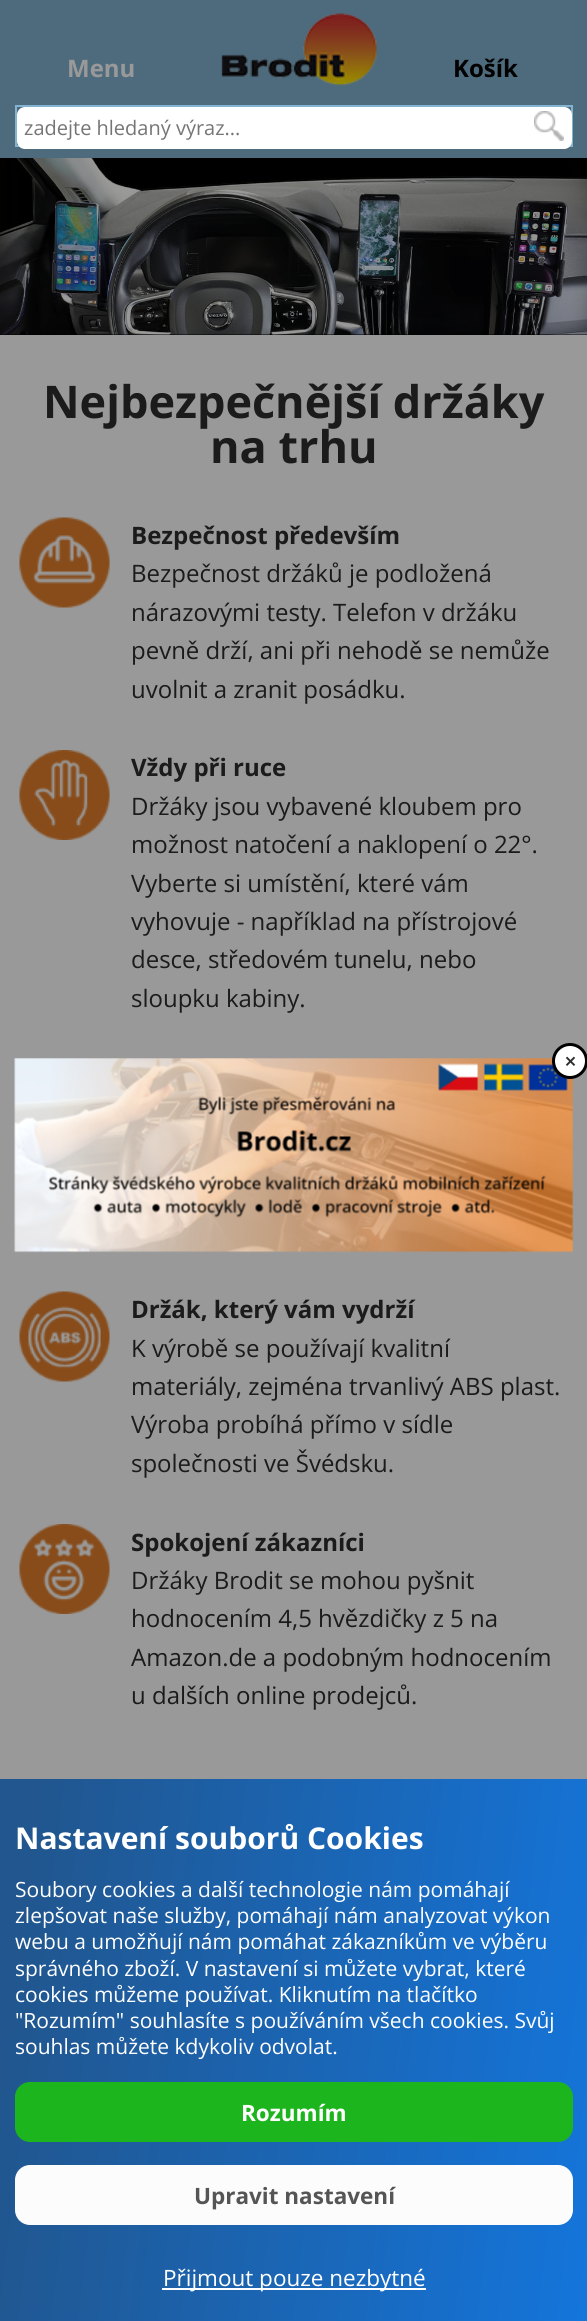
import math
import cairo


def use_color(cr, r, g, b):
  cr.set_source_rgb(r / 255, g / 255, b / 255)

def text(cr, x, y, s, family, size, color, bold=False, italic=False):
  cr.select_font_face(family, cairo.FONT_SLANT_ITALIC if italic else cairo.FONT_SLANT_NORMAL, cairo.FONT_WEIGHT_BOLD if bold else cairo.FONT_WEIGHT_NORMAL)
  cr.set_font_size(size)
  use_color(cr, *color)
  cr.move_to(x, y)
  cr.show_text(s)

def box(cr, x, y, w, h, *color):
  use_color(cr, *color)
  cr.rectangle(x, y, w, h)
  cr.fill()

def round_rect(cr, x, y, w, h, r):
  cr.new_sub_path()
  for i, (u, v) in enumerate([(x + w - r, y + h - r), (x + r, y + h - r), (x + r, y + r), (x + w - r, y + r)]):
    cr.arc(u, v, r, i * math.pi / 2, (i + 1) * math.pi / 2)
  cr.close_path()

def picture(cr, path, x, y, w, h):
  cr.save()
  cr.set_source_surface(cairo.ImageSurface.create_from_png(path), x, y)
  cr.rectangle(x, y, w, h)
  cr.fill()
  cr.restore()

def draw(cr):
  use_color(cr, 0, 0, 0)
  cr.paint()
  box(cr, 0, 0, 587, 158, 78, 107, 125)
  picture(cr, "img_01.png", 221, 13, 156, 73)
  cr.rectangle(16, 106, 556, 40)
  use_color(cr, 130, 179, 209)
  cr.stroke()
  use_color(cr, 255, 255, 255)
  round_rect(cr, 18, 108, 553, 40, 7)
  cr.fill_preserve()
  cr.stroke()
  picture(cr, "img_02.png", 534, 111, 30, 30)
  picture(cr, "img_03.png", 0, 158, 587, 177)
  box(cr, 0, 335, 587, 1444, 153, 153, 153)
  picture(cr, "img_04.png", 19, 517, 91, 91)
  picture(cr, "img_05.png", 19, 750, 91, 90)
  picture(cr, "img_06.png", 19, 1291, 91, 91)
  picture(cr, "img_07.png", 19, 1524, 91, 90)
  picture(cr, "img_08.png", 14, 1058, 560, 195)
  use_color(cr, 255, 255, 255)
  cr.arc(570, 1061, 16.5, 0, 2 * math.pi)
  cr.fill_preserve()
  use_color(cr, 0, 0, 0)
  cr.set_line_width(3)
  cr.stroke()
  gradient = cairo.LinearGradient(-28, 2011, 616, 2090)
  gradient.add_color_stop_rgba(0.05, 0.129, 0.337, 0.557, 1)
  gradient.add_color_stop_rgba(1, 0.078, 0.459, 0.859, 1)
  cr.set_source(gradient)
  cr.rectangle(0, 1779, 587, 542)
  cr.fill()
  use_color(cr, 29, 181, 29)
  round_rect(cr, 15, 2082, 558, 60, 15)
  cr.fill()
  use_color(cr, 252, 252, 252)
  round_rect(cr, 15, 2165, 558, 60, 15)
  cr.fill()
  box(cr, 162, 2288, 264, 2, 255, 255, 255)
  text(cr, 67, 77, "Menu", "Open Sans", 24, (153, 153, 153), bold=True)
  text(cr, 453, 77, "Košík", "Open Sans", 24, (0, 0, 0), bold=True)
  text(cr, 24, 135, "zadejte hledaný výraz...", "Open Sans", 20, (117, 117, 117))
  text(cr, 43, 418, "Nejbezpečnější držáky", "Open Sans", 45, (27, 27, 27), bold=True)
  text(cr, 210, 463, "na trhu", "Open Sans", 45, (27, 27, 27), bold=True)
  text(cr, 131, 544, "Bezpečnost především", "Open Sans", 24, (27, 27, 27), bold=True)
  text(cr, 131, 582, "Bezpečnost držáků je podložená", "Open Sans", 24, (27, 27, 27))
  text(cr, 131, 621, "nárazovými testy. Telefon v držáku", "Open Sans", 24, (27, 27, 27))
  text(cr, 131, 659, "pevně drží, ani při nehodě se nemůže", "Open Sans", 24, (27, 27, 27))
  text(cr, 131, 698, "uvolnit a zranit posádku.", "Open Sans", 24, (27, 27, 27))
  text(cr, 131, 776, "Vždy při ruce", "Open Sans", 24, (27, 27, 27), bold=True)
  text(cr, 131, 815, "Držáky jsou vybavené kloubem pro", "Open Sans", 24, (27, 27, 27))
  text(cr, 131, 853, "možnost natočení a naklopení o 22°.", "Open Sans", 24, (27, 27, 27))
  text(cr, 131, 892, "Vyberte si umístění, které vám", "Open Sans", 24, (27, 27, 27))
  text(cr, 131, 930, "vyhovuje - například na přístrojové", "Open Sans", 24, (27, 27, 27))
  text(cr, 131, 968, "desce, středovém tunelu, nebo", "Open Sans", 24, (27, 27, 27))
  text(cr, 131, 1007, "sloupku kabiny.", "Open Sans", 24, (27, 27, 27))
  text(cr, 131, 1318, "Držák, který vám vydrží", "Open Sans", 24, (27, 27, 27), bold=True)
  text(cr, 131, 1357, "K výrobě se používají kvalitní", "Open Sans", 24, (27, 27, 27))
  text(cr, 131, 1395, "materiály, zejména trvanlivý ABS plast.", "Open Sans", 24, (27, 27, 27))
  text(cr, 131, 1433, "Výroba probíhá přímo v sídle", "Open Sans", 24, (27, 27, 27))
  text(cr, 131, 1472, "společnosti ve Švédsku.", "Open Sans", 24, (27, 27, 27))
  text(cr, 131, 1551, "Spokojení zákazníci", "Open Sans", 24, (27, 27, 27), bold=True)
  text(cr, 131, 1589, "Držáky Brodit se mohou pyšnit", "Open Sans", 24, (27, 27, 27))
  text(cr, 131, 1627, "hodnocením 4,5 hvězdičky z 5 na", "Open Sans", 24, (27, 27, 27))
  text(cr, 131, 1666, "Amazon.de a podobným hodnocením", "Open Sans", 24, (27, 27, 27))
  text(cr, 131, 1704, "u dalších online prodejců.", "Open Sans", 24, (27, 27, 27))
  text(cr, 564, 1067, "✕", "DejaVu Sans", 15, (45, 45, 45), bold=True)
  text(cr, 15, 1849, "Nastavení souborů Cookies", "Open Sans", 30, (255, 255, 255), bold=True)
  text(cr, 15, 1897, "Soubory cookies a další technologie nám pomáhají", "Open Sans", 21, (255, 255, 255))
  text(cr, 15, 1923, "zlepšovat naše služby, pomáhají nám analyzovat výkon", "Open Sans", 21, (255, 255, 255))
  text(cr, 15, 1949, "webu a umožňují nám pomáhat zákazníkům ve výběru", "Open Sans", 21, (255, 255, 255))
  text(cr, 15, 1976, "správného zboží. V nastavení si můžete vybrat, které", "Open Sans", 21, (255, 255, 255))
  text(cr, 15, 2002, "cookies můžeme používat. Kliknutím na tlačítko", "Open Sans", 21, (255, 255, 255))
  text(cr, 15, 2028, "\"Rozumím\" souhlasíte s používáním všech cookies. Svůj", "Open Sans", 21, (255, 255, 255))
  text(cr, 15, 2054, "souhlas můžete kdykoliv odvolat.", "Open Sans", 21, (255, 255, 255))
  text(cr, 241, 2121, "Rozumím", "Open Sans", 22.5, (255, 255, 255), bold=True)
  text(cr, 194, 2204, "Upravit nastavení", "Open Sans", 22.5, (85, 85, 85), bold=True)
  text(cr, 163, 2286, "Přijmout pouze nezbytné", "Open Sans", 22.5, (255, 255, 255))


surface = cairo.ImageSurface(cairo.FORMAT_RGB24, 587, 2321)
cr = cairo.Context(surface)
options = cairo.FontOptions()
options.set_hint_metrics(cairo.HINT_METRICS_OFF)
options.set_hint_style(cairo.HINT_STYLE_NONE)
cr.set_font_options(options)
cr.set_miter_limit(4)
draw(cr)
surface.write_to_png("out.png")
